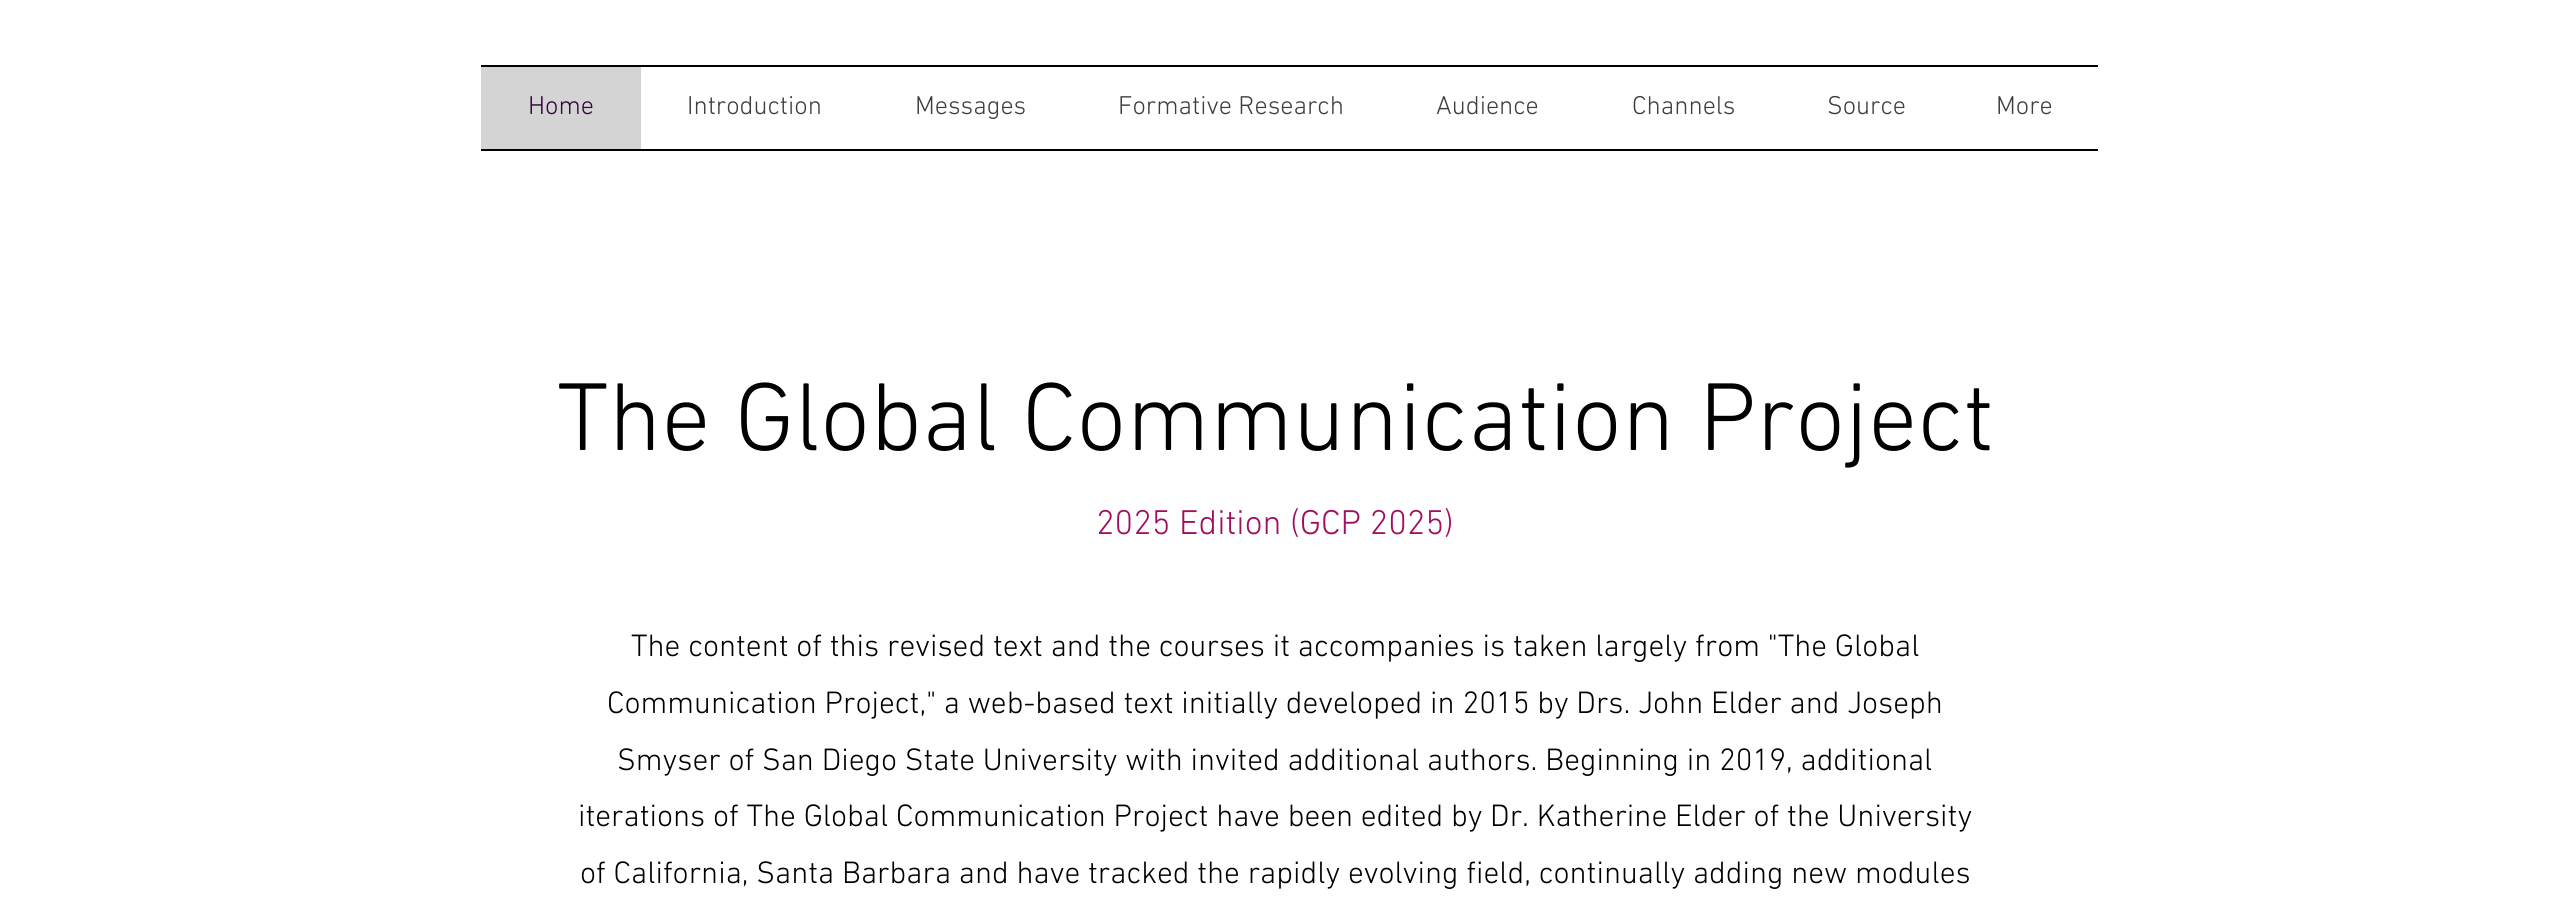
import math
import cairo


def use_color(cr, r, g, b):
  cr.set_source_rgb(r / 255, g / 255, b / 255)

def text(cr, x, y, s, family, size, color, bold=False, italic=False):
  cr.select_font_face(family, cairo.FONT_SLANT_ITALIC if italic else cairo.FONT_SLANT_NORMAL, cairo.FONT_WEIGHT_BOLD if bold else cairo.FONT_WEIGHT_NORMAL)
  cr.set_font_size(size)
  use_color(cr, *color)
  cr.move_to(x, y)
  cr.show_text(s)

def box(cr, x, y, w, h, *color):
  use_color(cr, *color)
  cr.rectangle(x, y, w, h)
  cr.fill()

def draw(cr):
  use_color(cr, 255, 255, 255)
  cr.paint()
  box(cr, 481, 65, 1617, 2, 0, 0, 0)
  box(cr, 481, 149, 1617, 2, 0, 0, 0)
  box(cr, 481, 67, 160, 82, 212, 212, 212)
  text(cr, 528, 114, "Home", "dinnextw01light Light", 26.25, (55, 2, 59))
  text(cr, 687, 114, "Introduction", "dinnextw01light Light", 26.25, (62, 62, 62))
  text(cr, 915, 114, "Messages", "dinnextw01light Light", 26.25, (62, 62, 62))
  text(cr, 1118, 114, "Formative Research", "dinnextw01light Light", 26.25, (62, 62, 62))
  text(cr, 1436, 114, "Audience", "dinnextw01light Light", 26.25, (62, 62, 62))
  text(cr, 1632, 114, "Channels", "dinnextw01light Light", 26.25, (62, 62, 62))
  text(cr, 1827, 114, "Source", "dinnextw01light Light", 26.25, (62, 62, 62))
  text(cr, 1996, 114, "More", "dinnextw01light Light", 26.25, (62, 62, 62))
  text(cr, 557, 450, "The Global Communication Project", "dinnextw01light Light", 98, (0, 0, 0))
  text(cr, 1096, 534, "2025 Edition (GCP 2025)", "dinnextw01light Light", 35, (161, 16, 96))
  text(cr, 631, 656, "The content of this revised text and the courses it accompanies is taken largely from \"The Global", "dinnextw01light Light", 31.5, (0, 0, 0))
  text(cr, 607, 713, "Communication Project,\" a web-based text initially developed in 2015 by Drs. John Elder and Joseph", "dinnextw01light Light", 31.5, (0, 0, 0))
  text(cr, 617, 770, "Smyser of San Diego State University with invited additional authors. Beginning in 2019, additional", "dinnextw01light Light", 31.5, (0, 0, 0))
  text(cr, 578, 826, "iterations of The Global Communication Project have been edited by Dr. Katherine Elder of the University", "dinnextw01light Light", 31.5, (0, 0, 0))
  text(cr, 580, 883, "of California, Santa Barbara and have tracked the rapidly evolving field, continually adding new modules", "dinnextw01light Light", 31.5, (0, 0, 0))


surface = cairo.ImageSurface(cairo.FORMAT_RGB24, 2550, 920)
cr = cairo.Context(surface)
options = cairo.FontOptions()
options.set_hint_metrics(cairo.HINT_METRICS_OFF)
options.set_hint_style(cairo.HINT_STYLE_NONE)
cr.set_font_options(options)
cr.set_miter_limit(4)
draw(cr)
surface.write_to_png("out.png")
